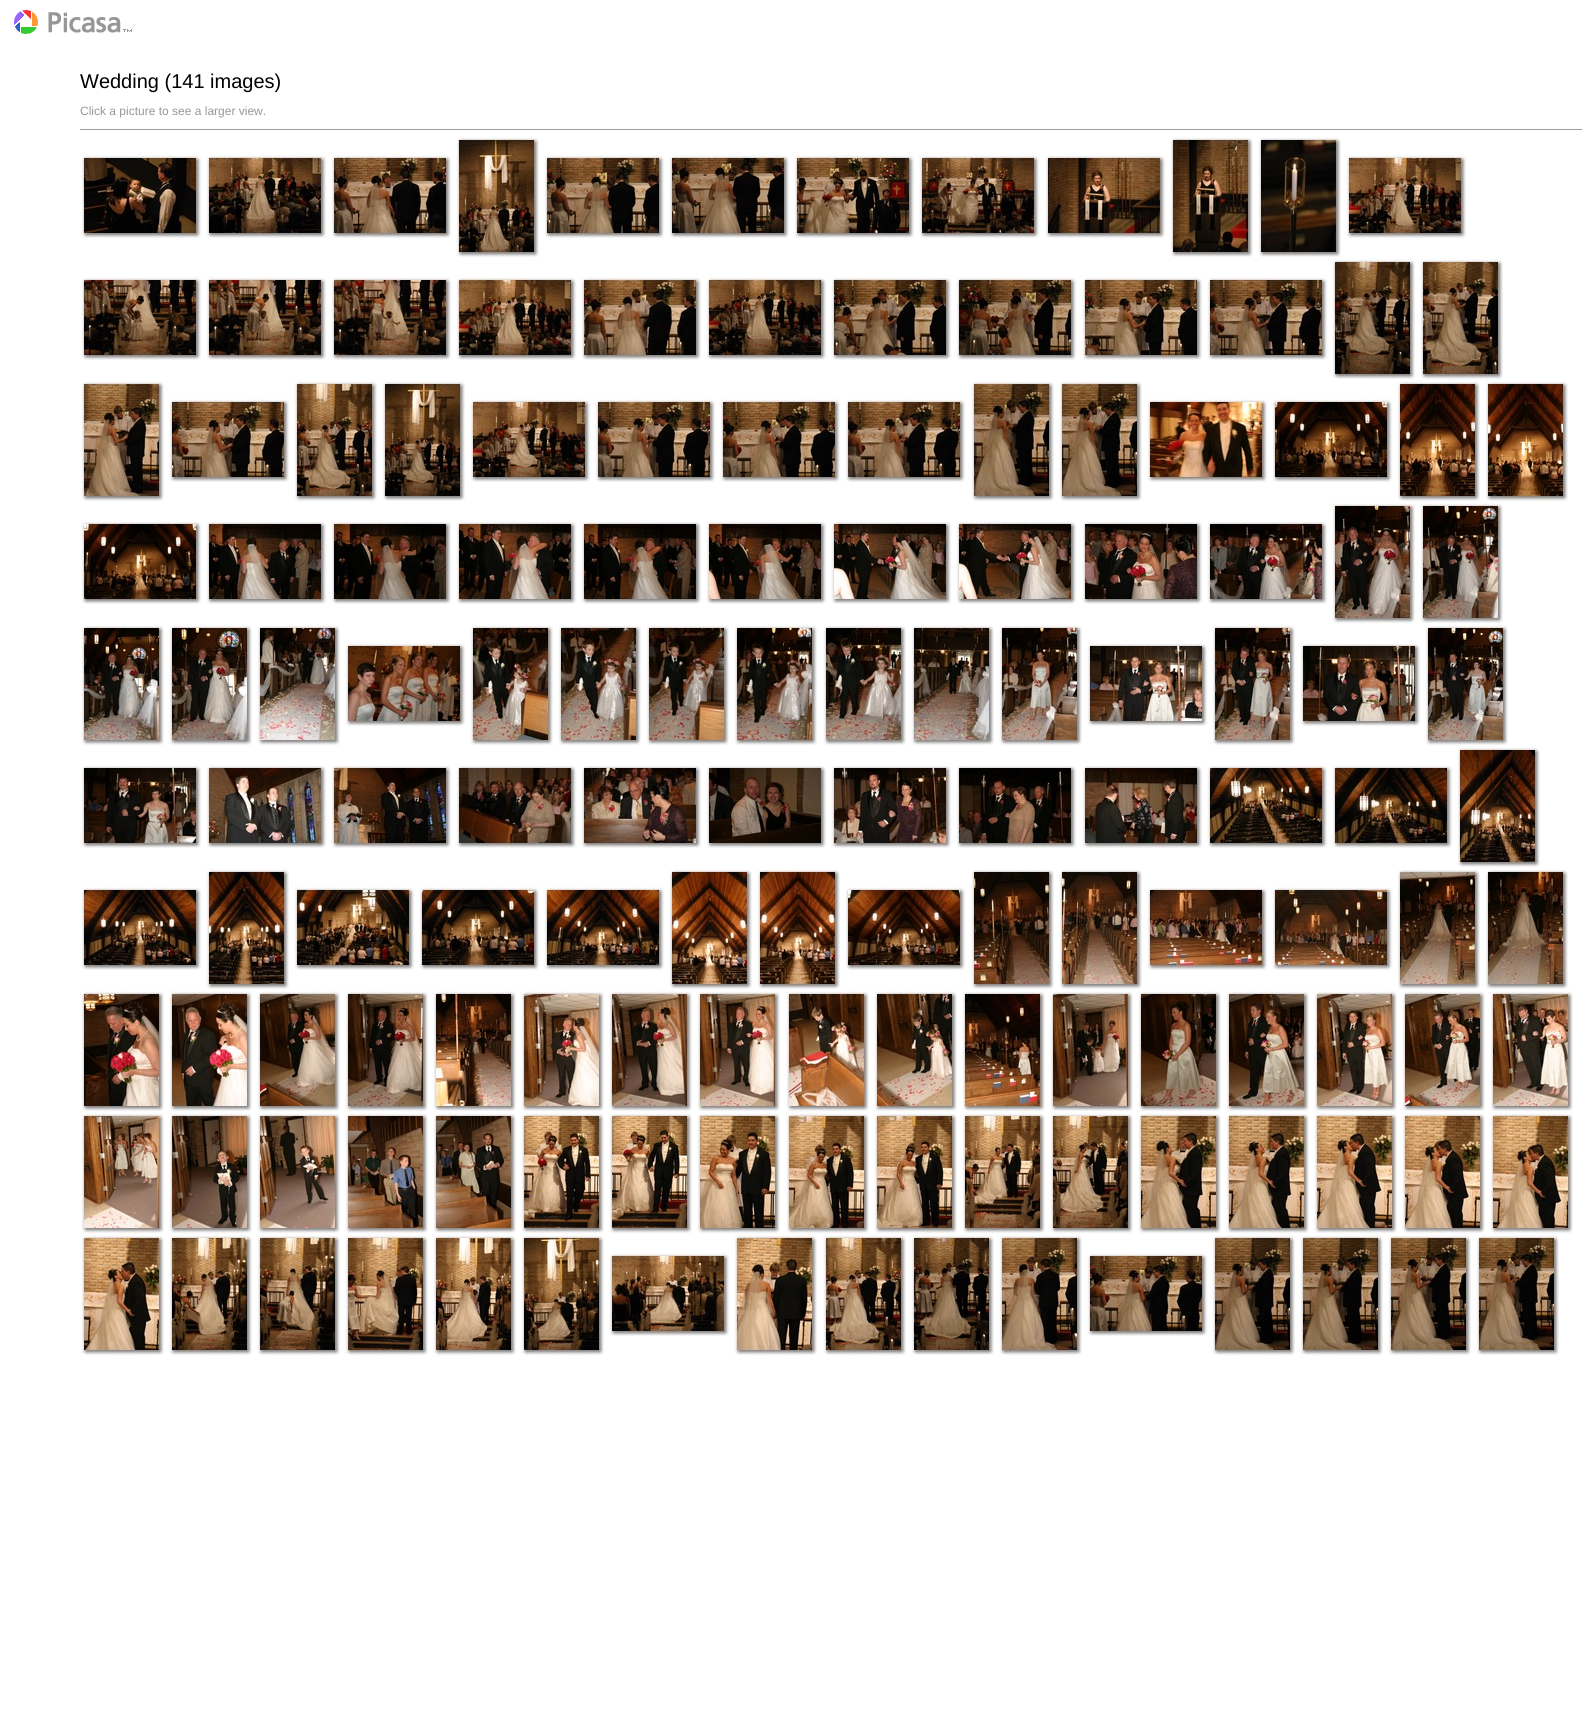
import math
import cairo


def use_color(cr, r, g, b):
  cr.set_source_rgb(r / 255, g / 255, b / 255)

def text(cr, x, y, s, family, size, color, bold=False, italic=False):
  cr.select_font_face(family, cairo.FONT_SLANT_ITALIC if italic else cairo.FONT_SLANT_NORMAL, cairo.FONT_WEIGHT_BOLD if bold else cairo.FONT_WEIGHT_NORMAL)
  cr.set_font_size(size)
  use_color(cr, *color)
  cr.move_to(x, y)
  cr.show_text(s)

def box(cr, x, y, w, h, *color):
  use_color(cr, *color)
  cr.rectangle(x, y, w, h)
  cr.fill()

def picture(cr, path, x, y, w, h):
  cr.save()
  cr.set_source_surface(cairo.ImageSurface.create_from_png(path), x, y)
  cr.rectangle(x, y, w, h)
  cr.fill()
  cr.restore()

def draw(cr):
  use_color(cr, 255, 255, 255)
  cr.paint()
  picture(cr, "img_01.png", 14, 10, 118, 24)
  box(cr, 80, 129, 1503, 1, 159, 159, 159)
  box(cr, 1582, 129, 1, 1, 238, 238, 238)
  picture(cr, "img_02.png", 80, 154, 122, 84)
  picture(cr, "img_03.png", 205, 154, 122, 84)
  picture(cr, "img_04.png", 330, 154, 122, 84)
  picture(cr, "img_05.png", 455, 136, 84, 122)
  picture(cr, "img_06.png", 544, 154, 121, 84)
  picture(cr, "img_07.png", 668, 154, 122, 84)
  picture(cr, "img_08.png", 793, 154, 122, 84)
  picture(cr, "img_09.png", 918, 154, 122, 84)
  picture(cr, "img_10.png", 1044, 154, 122, 84)
  picture(cr, "img_11.png", 1169, 136, 84, 121)
  picture(cr, "img_12.png", 1258, 136, 83, 121)
  picture(cr, "img_13.png", 1345, 154, 122, 84)
  picture(cr, "img_14.png", 80, 276, 122, 84)
  picture(cr, "img_15.png", 205, 276, 122, 84)
  picture(cr, "img_16.png", 330, 276, 122, 84)
  picture(cr, "img_17.png", 455, 276, 122, 84)
  picture(cr, "img_18.png", 580, 276, 122, 84)
  picture(cr, "img_19.png", 705, 276, 122, 84)
  picture(cr, "img_20.png", 830, 276, 122, 84)
  picture(cr, "img_21.png", 955, 276, 122, 84)
  picture(cr, "img_22.png", 1081, 276, 122, 84)
  picture(cr, "img_23.png", 1206, 276, 122, 84)
  picture(cr, "img_24.png", 1331, 258, 84, 121)
  picture(cr, "img_25.png", 1419, 258, 84, 122)
  picture(cr, "img_26.png", 80, 380, 84, 122)
  picture(cr, "img_27.png", 168, 398, 122, 84)
  picture(cr, "img_28.png", 293, 380, 84, 122)
  picture(cr, "img_29.png", 381, 380, 84, 121)
  picture(cr, "img_30.png", 469, 398, 122, 84)
  picture(cr, "img_31.png", 594, 398, 122, 84)
  picture(cr, "img_32.png", 719, 398, 122, 84)
  picture(cr, "img_33.png", 844, 398, 122, 84)
  picture(cr, "img_34.png", 970, 380, 84, 122)
  picture(cr, "img_35.png", 1058, 380, 84, 122)
  picture(cr, "img_36.png", 1146, 398, 122, 84)
  picture(cr, "img_37.png", 1271, 398, 122, 84)
  picture(cr, "img_38.png", 1396, 380, 84, 122)
  picture(cr, "img_39.png", 1484, 380, 84, 122)
  picture(cr, "img_40.png", 80, 520, 122, 84)
  picture(cr, "img_41.png", 205, 520, 122, 84)
  picture(cr, "img_42.png", 330, 520, 122, 84)
  picture(cr, "img_43.png", 455, 520, 122, 84)
  picture(cr, "img_44.png", 580, 520, 122, 84)
  picture(cr, "img_45.png", 705, 520, 122, 84)
  picture(cr, "img_46.png", 830, 520, 122, 84)
  picture(cr, "img_47.png", 955, 520, 122, 84)
  picture(cr, "img_48.png", 1081, 520, 122, 84)
  picture(cr, "img_49.png", 1206, 520, 122, 84)
  picture(cr, "img_50.png", 1331, 502, 84, 122)
  picture(cr, "img_51.png", 1419, 502, 84, 122)
  picture(cr, "img_52.png", 80, 624, 84, 122)
  picture(cr, "img_53.png", 168, 624, 84, 122)
  picture(cr, "img_54.png", 256, 624, 84, 122)
  picture(cr, "img_55.png", 344, 642, 122, 84)
  picture(cr, "img_56.png", 469, 624, 84, 122)
  picture(cr, "img_57.png", 557, 624, 84, 122)
  picture(cr, "img_58.png", 645, 624, 84, 122)
  picture(cr, "img_59.png", 733, 624, 84, 122)
  picture(cr, "img_60.png", 822, 625, 84, 121)
  picture(cr, "img_61.png", 910, 625, 84, 121)
  picture(cr, "img_62.png", 998, 624, 84, 122)
  picture(cr, "img_63.png", 1086, 642, 122, 84)
  picture(cr, "img_64.png", 1211, 624, 84, 122)
  picture(cr, "img_65.png", 1299, 642, 122, 84)
  picture(cr, "img_66.png", 1424, 624, 84, 122)
  picture(cr, "img_67.png", 80, 765, 122, 83)
  picture(cr, "img_68.png", 205, 764, 122, 84)
  picture(cr, "img_69.png", 330, 764, 122, 84)
  picture(cr, "img_70.png", 455, 764, 122, 84)
  picture(cr, "img_71.png", 580, 764, 122, 84)
  picture(cr, "img_72.png", 705, 764, 122, 84)
  picture(cr, "img_73.png", 830, 764, 122, 84)
  picture(cr, "img_74.png", 956, 764, 121, 84)
  picture(cr, "img_75.png", 1081, 765, 122, 83)
  picture(cr, "img_76.png", 1206, 764, 122, 84)
  picture(cr, "img_77.png", 1331, 764, 122, 84)
  picture(cr, "img_78.png", 1456, 746, 84, 122)
  picture(cr, "img_79.png", 80, 886, 122, 84)
  picture(cr, "img_80.png", 205, 868, 84, 122)
  picture(cr, "img_81.png", 293, 886, 122, 84)
  picture(cr, "img_82.png", 418, 886, 122, 84)
  picture(cr, "img_83.png", 543, 886, 122, 84)
  picture(cr, "img_84.png", 668, 868, 84, 122)
  picture(cr, "img_85.png", 756, 868, 84, 122)
  picture(cr, "img_86.png", 844, 886, 122, 84)
  picture(cr, "img_87.png", 970, 869, 84, 121)
  picture(cr, "img_88.png", 1058, 869, 84, 121)
  picture(cr, "img_89.png", 1146, 886, 122, 84)
  picture(cr, "img_90.png", 1271, 886, 122, 84)
  picture(cr, "img_91.png", 1397, 869, 83, 121)
  picture(cr, "img_92.png", 1484, 868, 84, 122)
  picture(cr, "img_93.png", 80, 990, 84, 122)
  picture(cr, "img_94.png", 168, 990, 84, 122)
  picture(cr, "img_95.png", 256, 990, 84, 122)
  picture(cr, "img_96.png", 344, 990, 84, 122)
  picture(cr, "img_97.png", 432, 990, 84, 121)
  picture(cr, "img_98.png", 520, 990, 84, 122)
  picture(cr, "img_99.png", 608, 990, 84, 122)
  picture(cr, "img_100.png", 696, 990, 84, 122)
  picture(cr, "img_101.png", 785, 990, 84, 122)
  picture(cr, "img_102.png", 873, 990, 84, 122)
  picture(cr, "img_103.png", 961, 990, 84, 122)
  picture(cr, "img_104.png", 1049, 990, 84, 121)
  picture(cr, "img_105.png", 1137, 990, 84, 122)
  picture(cr, "img_106.png", 1225, 990, 84, 122)
  picture(cr, "img_107.png", 1313, 990, 84, 122)
  picture(cr, "img_108.png", 1401, 990, 84, 122)
  picture(cr, "img_109.png", 1489, 990, 84, 122)
  picture(cr, "img_110.png", 80, 1112, 84, 122)
  picture(cr, "img_111.png", 168, 1112, 84, 122)
  picture(cr, "img_112.png", 256, 1112, 84, 122)
  picture(cr, "img_113.png", 344, 1112, 84, 122)
  picture(cr, "img_114.png", 432, 1112, 84, 122)
  picture(cr, "img_115.png", 520, 1112, 84, 122)
  picture(cr, "img_116.png", 608, 1112, 84, 122)
  picture(cr, "img_117.png", 696, 1112, 84, 122)
  picture(cr, "img_118.png", 785, 1112, 84, 122)
  picture(cr, "img_119.png", 873, 1112, 84, 122)
  picture(cr, "img_120.png", 961, 1112, 84, 122)
  picture(cr, "img_121.png", 1049, 1112, 84, 122)
  picture(cr, "img_122.png", 1137, 1112, 84, 122)
  picture(cr, "img_123.png", 1225, 1112, 84, 122)
  picture(cr, "img_124.png", 1313, 1112, 84, 122)
  picture(cr, "img_125.png", 1401, 1112, 84, 122)
  picture(cr, "img_126.png", 1489, 1112, 84, 122)
  picture(cr, "img_127.png", 80, 1234, 84, 122)
  picture(cr, "img_128.png", 168, 1234, 84, 122)
  picture(cr, "img_129.png", 256, 1234, 84, 122)
  picture(cr, "img_130.png", 344, 1234, 84, 122)
  picture(cr, "img_131.png", 432, 1234, 84, 122)
  picture(cr, "img_132.png", 520, 1234, 84, 122)
  picture(cr, "img_133.png", 608, 1252, 122, 84)
  picture(cr, "img_134.png", 733, 1234, 84, 122)
  picture(cr, "img_135.png", 822, 1234, 84, 122)
  picture(cr, "img_136.png", 910, 1234, 84, 121)
  picture(cr, "img_137.png", 998, 1234, 84, 122)
  picture(cr, "img_138.png", 1086, 1252, 122, 84)
  picture(cr, "img_139.png", 1211, 1234, 84, 122)
  picture(cr, "img_140.png", 1299, 1234, 84, 122)
  picture(cr, "img_141.png", 1387, 1234, 84, 122)
  picture(cr, "img_142.png", 1475, 1234, 84, 121)
  text(cr, 80, 88, "Wedding (141 images)", "Liberation Sans", 20, (0, 0, 0))
  text(cr, 80, 115, "Click a picture to see a larger view.", "Liberation Sans", 12, (151, 151, 151))


surface = cairo.ImageSurface(cairo.FORMAT_RGB24, 1591, 1715)
cr = cairo.Context(surface)
options = cairo.FontOptions()
options.set_hint_metrics(cairo.HINT_METRICS_OFF)
options.set_hint_style(cairo.HINT_STYLE_NONE)
cr.set_font_options(options)
cr.set_miter_limit(4)
draw(cr)
surface.write_to_png("out.png")
